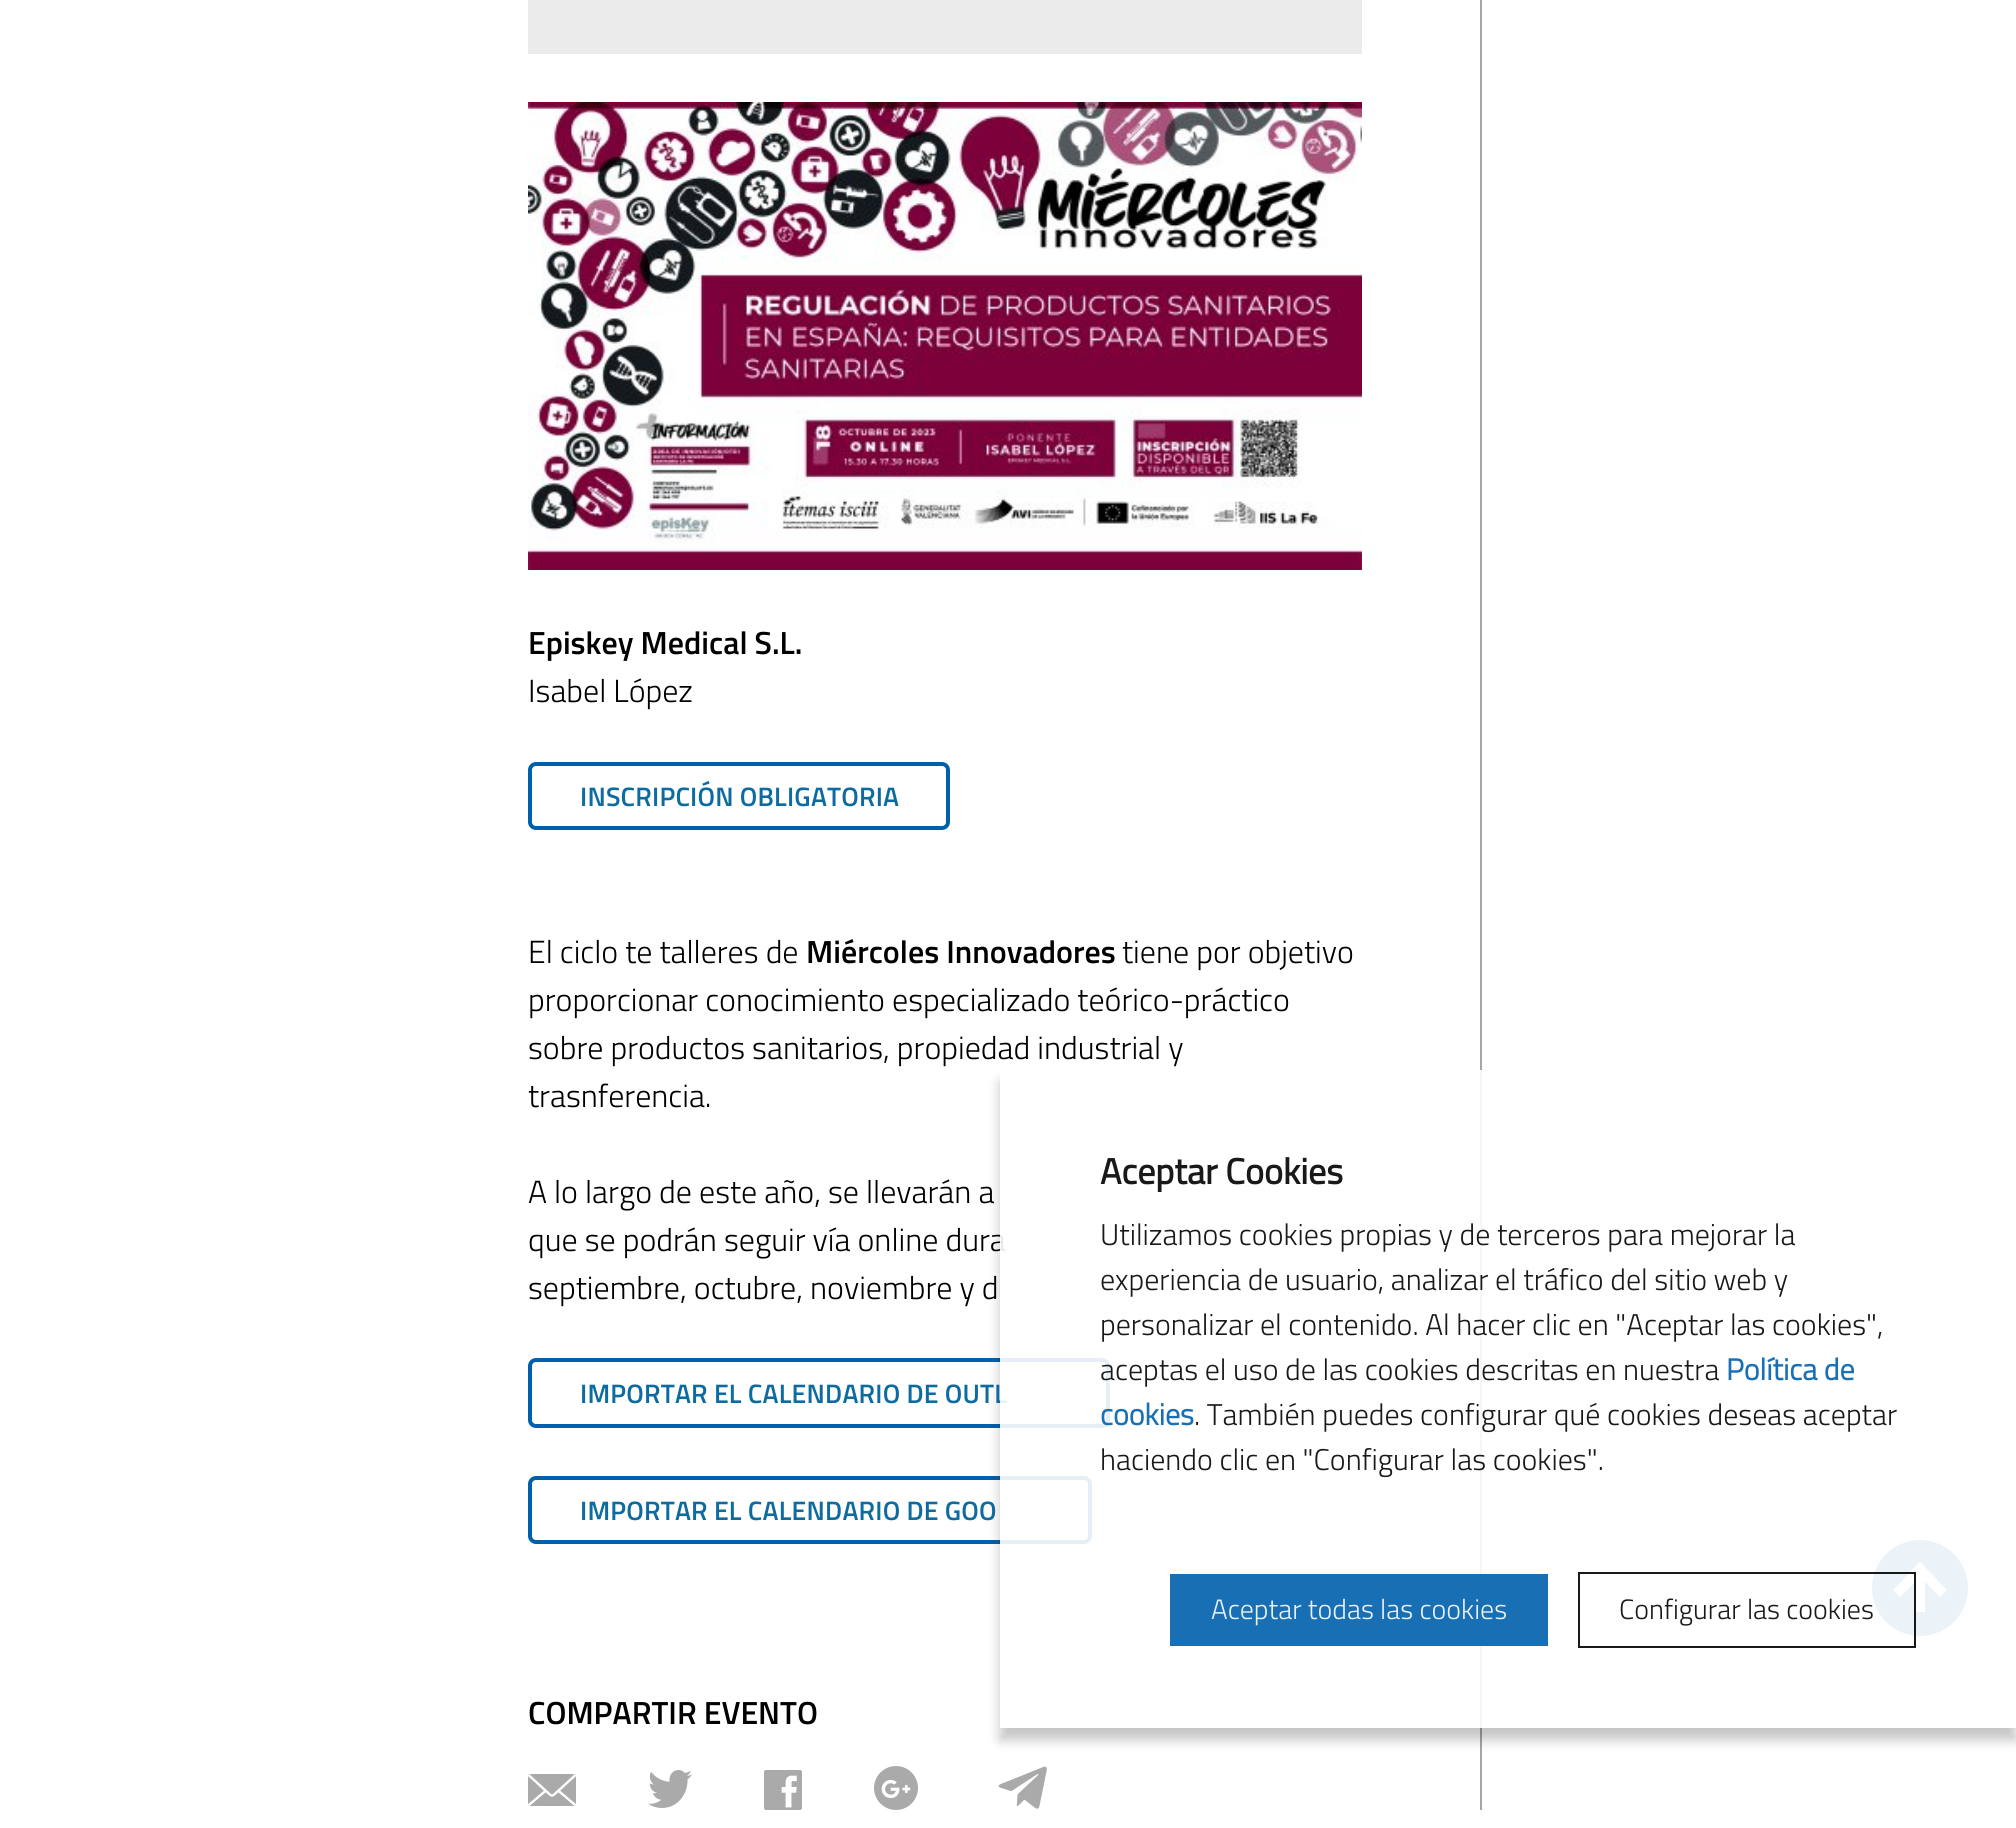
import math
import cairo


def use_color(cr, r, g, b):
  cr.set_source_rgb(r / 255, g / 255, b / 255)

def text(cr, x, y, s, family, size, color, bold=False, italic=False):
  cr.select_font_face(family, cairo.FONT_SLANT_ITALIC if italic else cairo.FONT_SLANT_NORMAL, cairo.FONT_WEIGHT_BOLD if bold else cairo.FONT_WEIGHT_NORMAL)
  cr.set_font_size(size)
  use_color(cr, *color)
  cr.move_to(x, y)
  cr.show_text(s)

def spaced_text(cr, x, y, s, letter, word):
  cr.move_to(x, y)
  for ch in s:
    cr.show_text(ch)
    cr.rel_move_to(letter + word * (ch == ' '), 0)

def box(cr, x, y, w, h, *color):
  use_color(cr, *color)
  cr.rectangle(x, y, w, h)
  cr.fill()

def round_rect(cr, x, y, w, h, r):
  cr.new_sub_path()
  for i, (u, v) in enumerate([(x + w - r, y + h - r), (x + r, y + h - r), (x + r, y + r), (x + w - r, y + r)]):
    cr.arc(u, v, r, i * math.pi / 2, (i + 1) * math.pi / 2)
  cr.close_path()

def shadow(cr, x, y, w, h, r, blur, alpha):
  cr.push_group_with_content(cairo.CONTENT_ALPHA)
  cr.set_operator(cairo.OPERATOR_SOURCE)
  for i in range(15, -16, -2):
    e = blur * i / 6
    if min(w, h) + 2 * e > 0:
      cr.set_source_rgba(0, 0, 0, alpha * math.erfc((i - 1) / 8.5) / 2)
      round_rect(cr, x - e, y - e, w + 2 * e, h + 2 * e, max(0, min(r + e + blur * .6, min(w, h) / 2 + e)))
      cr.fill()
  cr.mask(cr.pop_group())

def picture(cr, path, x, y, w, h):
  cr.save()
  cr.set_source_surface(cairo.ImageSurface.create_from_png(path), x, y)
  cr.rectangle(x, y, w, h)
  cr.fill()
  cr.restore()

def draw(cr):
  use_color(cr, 255, 255, 255)
  cr.paint()
  box(cr, 528, 0, 834, 54, 235, 235, 235)
  box(cr, 1480, 0, 2, 1810, 166, 166, 166)
  picture(cr, "img_01.png", 528, 102, 834, 468)
  round_rect(cr, 530, 764, 418, 64, 6)
  use_color(cr, 0, 96, 172)
  cr.set_line_width(4)
  cr.stroke()
  round_rect(cr, 530, 1360, 578, 66, 6)
  cr.stroke()
  round_rect(cr, 530, 1478, 560, 64, 6)
  cr.stroke()
  picture(cr, "img_02.png", 528, 1774, 48, 32)
  picture(cr, "img_03.png", 648, 1770, 44, 38)
  picture(cr, "img_04.png", 764, 1770, 38, 40)
  picture(cr, "img_05.png", 874, 1766, 44, 44)
  picture(cr, "img_06.png", 998, 1766, 49, 43)
  use_color(cr, 51, 128, 189)
  cr.arc(1920, 1588, 48, 0, 2 * math.pi)
  cr.fill()
  use_color(cr, 254, 254, 254)
  cr.set_fill_rule(cairo.FILL_RULE_EVEN_ODD)
  cr.new_path()
  cr.move_to(1920, 1562)
  cr.line_to(1893, 1590)
  cr.line_to(1900, 1597)
  cr.line_to(1915, 1582)
  cr.line_to(1915, 1612)
  cr.line_to(1925, 1612)
  cr.line_to(1925, 1582)
  cr.line_to(1940, 1597)
  cr.line_to(1947, 1590)
  cr.close_path()
  cr.fill()
  cr.save()
  cr.new_path()
  cr.move_to(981, 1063)
  cr.line_to(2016, 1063)
  cr.line_to(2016, 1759)
  cr.line_to(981, 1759)
  cr.close_path()
  cr.move_to(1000, 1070)
  cr.line_to(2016, 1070)
  cr.line_to(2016, 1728)
  cr.line_to(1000, 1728)
  cr.close_path()
  cr.clip()
  use_color(cr, 0, 0, 0)
  shadow(cr, 1000, 1082, 1016, 658, 0, 6, 0.23)
  cr.restore()
  text(cr, 528, 654, "Episkey Medical S.L.", "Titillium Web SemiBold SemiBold", 32, (0, 0, 0))
  text(cr, 528, 702, "Isabel López", "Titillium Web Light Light", 32, (0, 0, 0))
  cr.select_font_face("Titillium Web SemiBold SemiBold")
  cr.set_font_size(26.7)
  use_color(cr, 13, 107, 160)
  spaced_text(cr, 580, 806, "INSCRIPCIÓN OBLIGATORIA", 0.2, 0)
  text(cr, 528, 963, "El ciclo te talleres de", "Titillium Web Light Light", 32, (0, 0, 0))
  text(cr, 806, 963, "Miércoles Innovadores", "Titillium Web SemiBold SemiBold", 32, (0, 0, 0))
  text(cr, 1122, 963, "tiene por objetivo", "Titillium Web Light Light", 32, (0, 0, 0))
  text(cr, 528, 1011, "proporcionar conocimiento especializado teórico-práctico", "Titillium Web Light Light", 32, (0, 0, 0))
  text(cr, 528, 1059, "sobre productos sanitarios, propiedad industrial y", "Titillium Web Light Light", 32, (0, 0, 0))
  text(cr, 528, 1107, "trasnferencia.", "Titillium Web Light Light", 32, (0, 0, 0))
  text(cr, 528, 1203, "A lo largo de este año, se llevarán a", "Titillium Web Light Light", 32, (0, 0, 0))
  text(cr, 528, 1251, "que se podrán seguir vía online dura", "Titillium Web Light Light", 32, (0, 0, 0))
  text(cr, 528, 1299, "septiembre, octubre, noviembre y d", "Titillium Web Light Light", 32, (0, 0, 0))
  cr.select_font_face("Titillium Web SemiBold SemiBold")
  cr.set_font_size(26.7)
  use_color(cr, 13, 107, 160)
  spaced_text(cr, 580, 1403, "IMPORTAR EL CALENDARIO DE OUTL", 0.2, 0)
  spaced_text(cr, 580, 1520, "IMPORTAR EL CALENDARIO DE GOO", 0.2, 0)
  text(cr, 528, 1724, "COMPARTIR EVENTO", "Titillium Web SemiBold SemiBold", 32, (0, 0, 0))
  cr.set_source_rgba(1, 1, 1, 0.9)
  cr.rectangle(1000, 1070, 968, 658)
  cr.fill()
  text(cr, 1100, 1184, "Aceptar Cookies", "Titillium Web", 36, (25, 25, 25), bold=True)
  text(cr, 1100, 1245, "Utilizamos cookies propias y de terceros para mejorar la", "Titillium Web Light Light", 30, (25, 25, 25))
  text(cr, 1100, 1290, "experiencia de usuario, analizar el tráfico del sitio web y", "Titillium Web Light Light", 30, (25, 25, 25))
  text(cr, 1100, 1335, "personalizar el contenido. Al hacer clic en \"Aceptar las cookies\",", "Titillium Web Light Light", 30, (25, 25, 25))
  text(cr, 1100, 1380, "aceptas el uso de las cookies descritas en nuestra", "Titillium Web Light Light", 30, (25, 25, 25))
  text(cr, 1726, 1380, "Política de", "Titillium Web Light", 30, (26, 112, 180), bold=True)
  text(cr, 1100, 1425, "cookies", "Titillium Web Light", 30, (26, 112, 180), bold=True)
  text(cr, 1194, 1425, ". También puedes configurar qué cookies deseas aceptar", "Titillium Web Light Light", 30, (25, 25, 25))
  text(cr, 1100, 1470, "haciendo clic en \"Configurar las cookies\".", "Titillium Web Light Light", 30, (25, 25, 25))
  cr.set_source_rgba(0, 0.376, 0.675, 0.9)
  cr.rectangle(1170, 1574, 378, 72)
  cr.fill()
  text(cr, 1211, 1619, "Aceptar todas las cookies", "Titillium Web Light Light", 28, (232, 241, 248))
  cr.rectangle(1579, 1573, 336, 74)
  cr.set_source_rgba(0, 0, 0, 0.9)
  cr.set_line_width(2)
  cr.stroke()
  text(cr, 1619, 1619, "Configurar las cookies", "Titillium Web Light Light", 28, (25, 25, 25))


surface = cairo.ImageSurface(cairo.FORMAT_RGB24, 2016, 1828)
cr = cairo.Context(surface)
options = cairo.FontOptions()
options.set_hint_metrics(cairo.HINT_METRICS_OFF)
options.set_hint_style(cairo.HINT_STYLE_NONE)
cr.set_font_options(options)
cr.set_miter_limit(4)
draw(cr)
surface.write_to_png("out.png")
